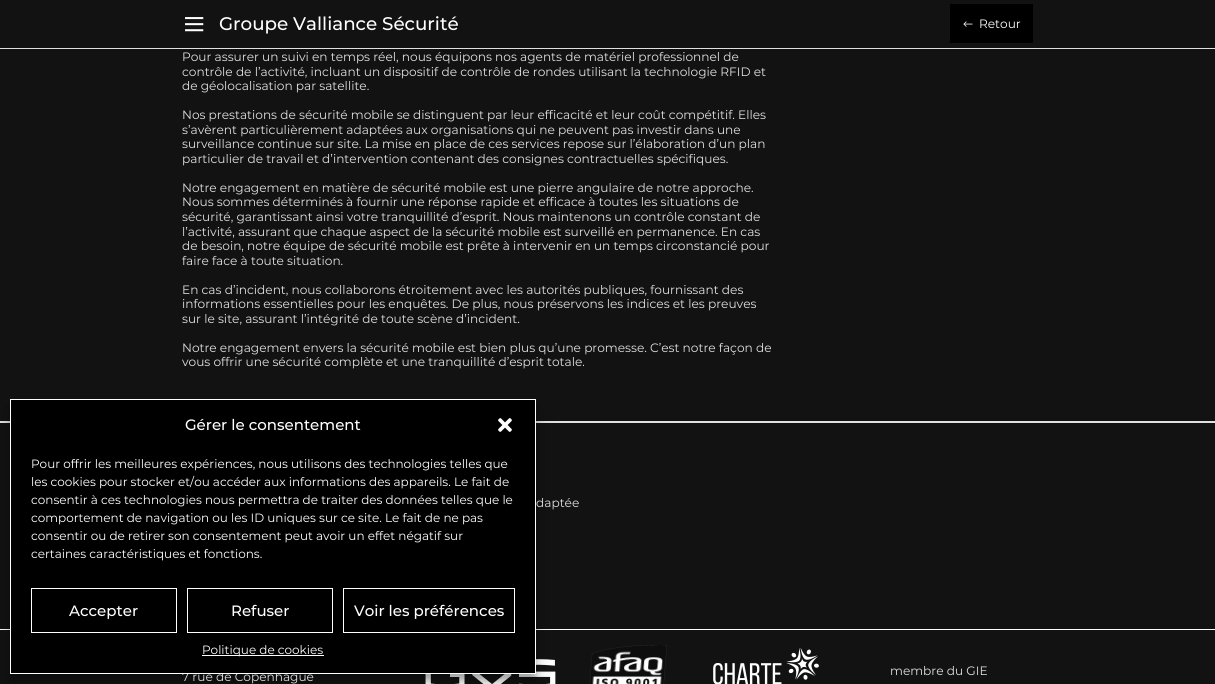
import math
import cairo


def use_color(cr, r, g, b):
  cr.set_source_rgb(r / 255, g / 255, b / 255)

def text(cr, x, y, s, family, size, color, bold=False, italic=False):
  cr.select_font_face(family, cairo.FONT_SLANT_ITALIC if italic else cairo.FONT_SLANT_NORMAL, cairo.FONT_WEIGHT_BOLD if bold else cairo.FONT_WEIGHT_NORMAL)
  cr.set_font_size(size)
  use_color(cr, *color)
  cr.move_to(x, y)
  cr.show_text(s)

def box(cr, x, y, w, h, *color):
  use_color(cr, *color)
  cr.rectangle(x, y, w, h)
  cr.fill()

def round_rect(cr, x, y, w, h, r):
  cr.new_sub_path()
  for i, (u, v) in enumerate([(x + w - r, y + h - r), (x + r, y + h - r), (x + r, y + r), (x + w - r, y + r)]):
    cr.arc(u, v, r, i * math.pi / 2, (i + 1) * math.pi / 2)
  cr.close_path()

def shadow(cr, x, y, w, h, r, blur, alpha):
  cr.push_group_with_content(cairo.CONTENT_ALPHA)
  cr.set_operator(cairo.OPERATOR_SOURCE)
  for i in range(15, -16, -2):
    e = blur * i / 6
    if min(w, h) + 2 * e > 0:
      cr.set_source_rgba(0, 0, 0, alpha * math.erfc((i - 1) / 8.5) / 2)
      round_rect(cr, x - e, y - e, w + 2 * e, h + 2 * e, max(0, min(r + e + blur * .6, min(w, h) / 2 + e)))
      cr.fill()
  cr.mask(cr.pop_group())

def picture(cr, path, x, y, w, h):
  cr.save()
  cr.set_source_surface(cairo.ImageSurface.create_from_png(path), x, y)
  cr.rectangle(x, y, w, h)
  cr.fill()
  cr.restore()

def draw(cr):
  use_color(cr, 18, 18, 18)
  cr.paint()
  box(cr, 0, 48, 1215, 1, 224, 224, 224)
  picture(cr, "img_01.png", 185, 17, 19, 15)
  box(cr, 950, 4, 83, 39, 0, 0, 0)
  picture(cr, "img_02.png", 963, 21, 10, 6)
  box(cr, 0, 421, 1215, 2, 224, 224, 224)
  box(cr, 0, 629, 1215, 1, 255, 255, 255)
  picture(cr, "img_04.png", 425, 659, 131, 25)
  use_color(cr, 0, 0, 0)
  shadow(cr, 10, 405, 526, 275, 0, 3, 0.23)
  shadow(cr, 10, 409, 526, 275, 0, 10, 0.19)
  picture(cr, "img_05.png", 589, 645, 78, 39)
  picture(cr, "img_06.png", 713, 647, 106, 37)
  box(cr, 908, 683, 1, 1, 24, 24, 24)
  text(cr, 219, 30, "Groupe Valliance Sécurité", "Montserrat Medium", 18.25, (255, 255, 255))
  text(cr, 979, 28, "Retour", "Montserrat", 12.15, (255, 255, 255))
  text(cr, 182, 61, "Pour assurer un suivi en temps réel, nous équipons nos agents de matériel professionnel de", "Montserrat", 12.15, (224, 224, 224))
  text(cr, 182, 76, "contrôle de l’activité, incluant un dispositif de contrôle de rondes utilisant la technologie RFID et", "Montserrat", 12.15, (224, 224, 224))
  text(cr, 182, 90, "de géolocalisation par satellite.", "Montserrat", 12.15, (224, 224, 224))
  text(cr, 182, 119, "Nos prestations de sécurité mobile se distinguent par leur efficacité et leur coût compétitif. Elles", "Montserrat", 12.15, (224, 224, 224))
  text(cr, 182, 134, "s’avèrent particulièrement adaptées aux organisations qui ne peuvent pas investir dans une", "Montserrat", 12.15, (224, 224, 224))
  text(cr, 182, 148, "surveillance continue sur site. La mise en place de ces services repose sur l’élaboration d’un plan", "Montserrat", 12.15, (224, 224, 224))
  text(cr, 182, 163, "particulier de travail et d’intervention contenant des consignes contractuelles spécifiques.", "Montserrat", 12.15, (224, 224, 224))
  text(cr, 182, 192, "Notre engagement en matière de sécurité mobile est une pierre angulaire de notre approche.", "Montserrat", 12.15, (224, 224, 224))
  text(cr, 182, 206, "Nous sommes déterminés à fournir une réponse rapide et efficace à toutes les situations de", "Montserrat", 12.15, (224, 224, 224))
  text(cr, 182, 221, "sécurité, garantissant ainsi votre tranquillité d’esprit. Nous maintenons un contrôle constant de", "Montserrat", 12.15, (224, 224, 224))
  text(cr, 182, 236, "l’activité, assurant que chaque aspect de la sécurité mobile est surveillé en permanence. En cas", "Montserrat", 12.15, (224, 224, 224))
  text(cr, 182, 250, "de besoin, notre équipe de sécurité mobile est prête à intervenir en un temps circonstancié pour", "Montserrat", 12.15, (224, 224, 224))
  text(cr, 182, 265, "faire face à toute situation.", "Montserrat", 12.15, (224, 224, 224))
  text(cr, 182, 294, "En cas d’incident, nous collaborons étroitement avec les autorités publiques, fournissant des", "Montserrat", 12.15, (224, 224, 224))
  text(cr, 182, 308, "informations essentielles pour les enquêtes. De plus, nous préservons les indices et les preuves", "Montserrat", 12.15, (224, 224, 224))
  text(cr, 182, 323, "sur le site, assurant l’intégrité de toute scène d’incident.", "Montserrat", 12.15, (224, 224, 224))
  text(cr, 182, 352, "Notre engagement envers la sécurité mobile est bien plus qu’une promesse. C’est notre façon de", "Montserrat", 12.15, (224, 224, 224))
  text(cr, 182, 366, "vous offrir une sécurité complète et une tranquillité d’esprit totale.", "Montserrat", 12.15, (224, 224, 224))
  text(cr, 536, 507, "daptée", "Montserrat", 12.15, (224, 224, 224))
  text(cr, 890, 675, "membre du GIE", "Montserrat", 12.15, (224, 224, 224))
  text(cr, 182, 681, "7 rue de Copenhague", "Montserrat", 12.15, (224, 224, 224))
  use_color(cr, 0, 0, 0)
  cr.rectangle(10.5, 399.5, 525, 274)
  cr.fill_preserve()
  use_color(cr, 255, 255, 255)
  cr.set_line_width(1)
  cr.stroke()
  text(cr, 31, 558, "certaines caractéristiques et fonctions.", "Montserrat", 12, (255, 255, 255))
  text(cr, 31, 540, "consentir ou de retirer son consentement peut avoir un effet négatif sur", "Montserrat", 12, (255, 255, 255))
  text(cr, 31, 522, "comportement de navigation ou les ID uniques sur ce site. Le fait de ne pas", "Montserrat", 12, (255, 255, 255))
  text(cr, 31, 504, "consentir à ces technologies nous permettra de traiter des données telles que le", "Montserrat", 12, (255, 255, 255))
  text(cr, 31, 486, "les cookies pour stocker et/ou accéder aux informations des appareils. Le fait de", "Montserrat", 12, (255, 255, 255))
  text(cr, 31, 468, "Pour offrir les meilleures expériences, nous utilisons des technologies telles que", "Montserrat", 12, (255, 255, 255))
  picture(cr, "img_03.png", 498, 418, 14, 14)
  box(cr, 202, 655, 122, 1, 255, 255, 255)
  text(cr, 202, 654, "Politique de cookies", "Montserrat", 12, (255, 255, 255))
  cr.rectangle(343.5, 588.5, 171, 44)
  cr.stroke()
  text(cr, 354, 616, "Voir les préférences", "Montserrat Medium", 15, (255, 255, 255))
  cr.rectangle(187.5, 588.5, 145, 44)
  cr.stroke()
  text(cr, 231, 616, "Refuser", "Montserrat Medium", 15, (255, 255, 255))
  cr.rectangle(31.5, 588.5, 145, 44)
  cr.stroke()
  text(cr, 69, 616, "Accepter", "Montserrat Medium", 15, (255, 255, 255))
  text(cr, 185, 430, "Gérer le consentement", "Montserrat Medium", 15, (255, 255, 255))


surface = cairo.ImageSurface(cairo.FORMAT_RGB24, 1215, 684)
cr = cairo.Context(surface)
options = cairo.FontOptions()
options.set_hint_metrics(cairo.HINT_METRICS_OFF)
options.set_hint_style(cairo.HINT_STYLE_NONE)
cr.set_font_options(options)
cr.set_miter_limit(4)
draw(cr)
surface.write_to_png("out.png")
